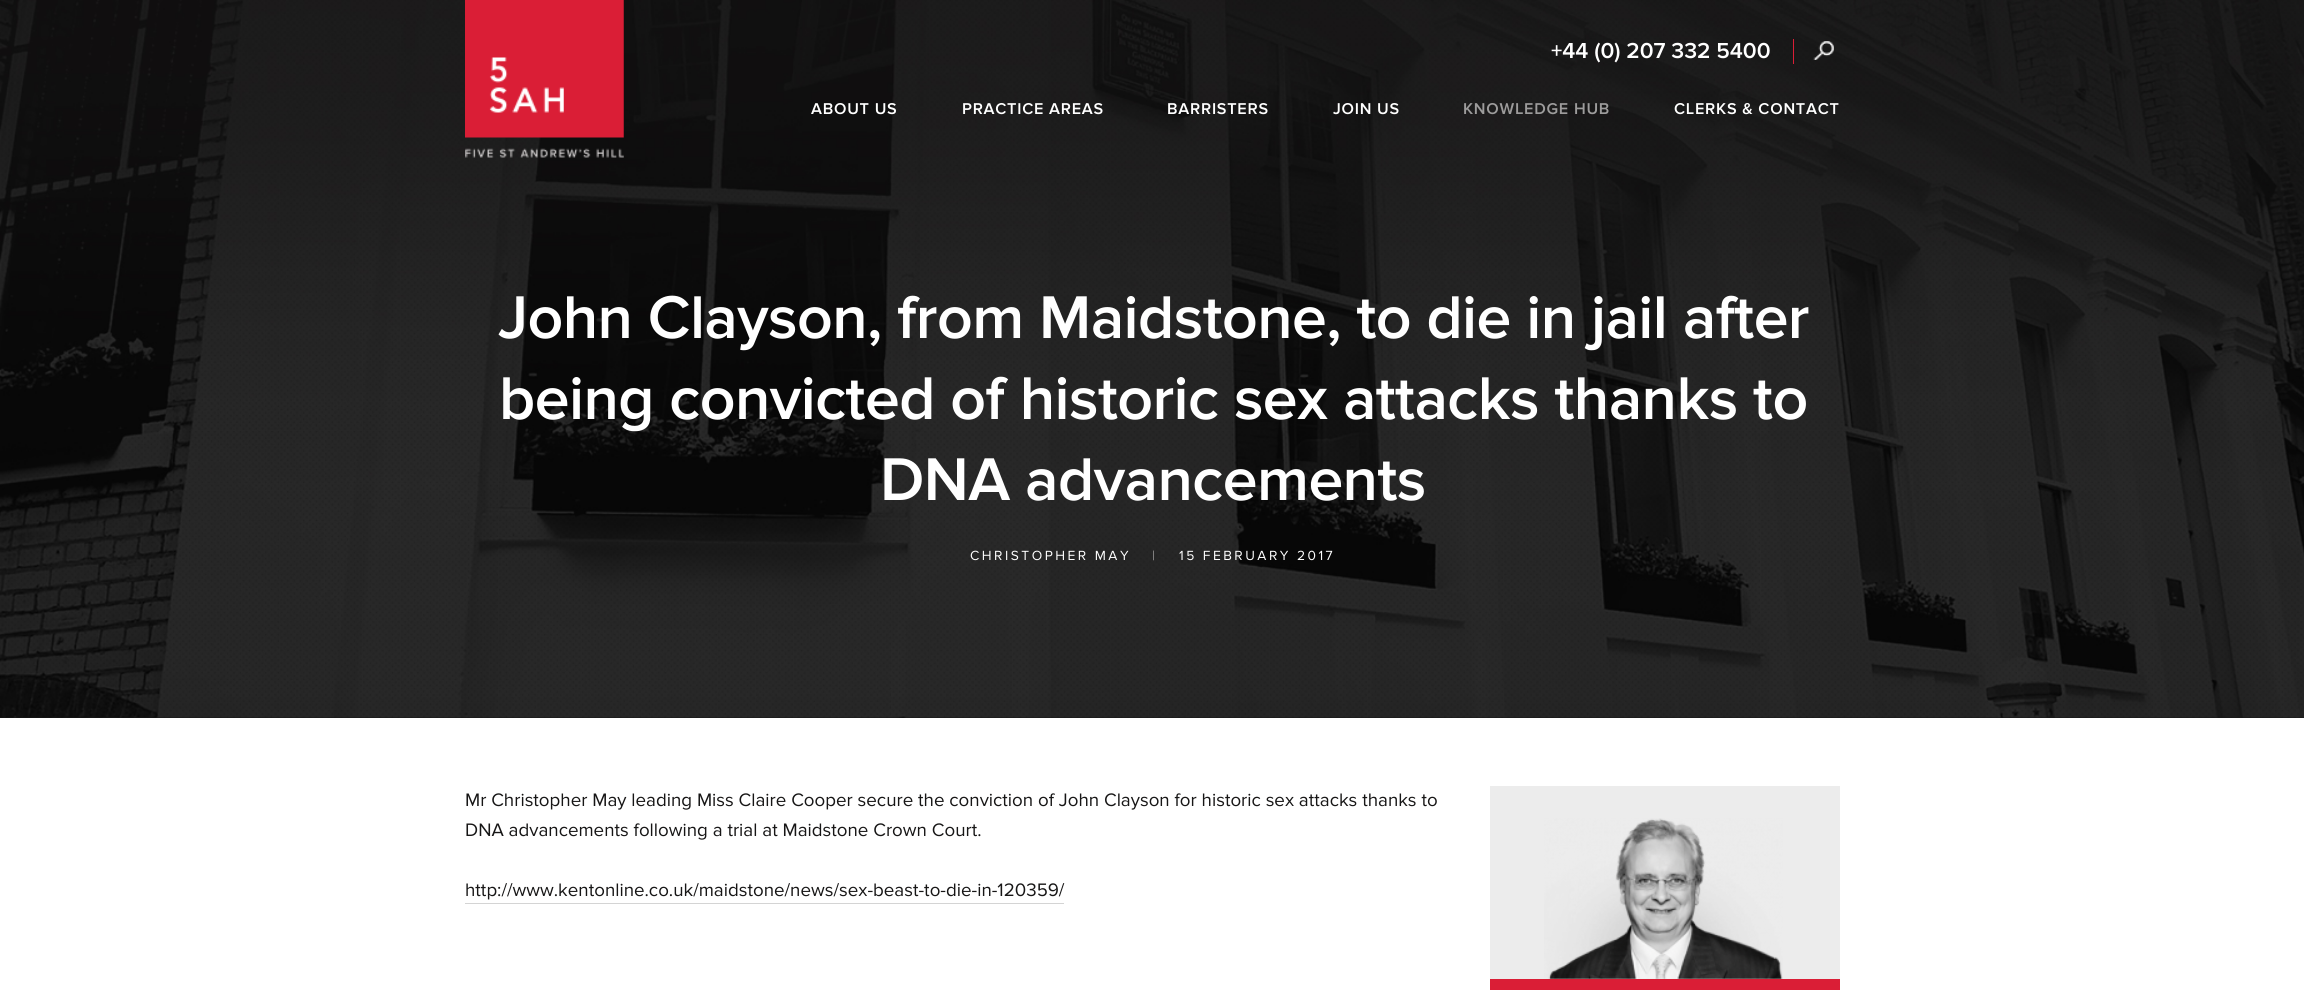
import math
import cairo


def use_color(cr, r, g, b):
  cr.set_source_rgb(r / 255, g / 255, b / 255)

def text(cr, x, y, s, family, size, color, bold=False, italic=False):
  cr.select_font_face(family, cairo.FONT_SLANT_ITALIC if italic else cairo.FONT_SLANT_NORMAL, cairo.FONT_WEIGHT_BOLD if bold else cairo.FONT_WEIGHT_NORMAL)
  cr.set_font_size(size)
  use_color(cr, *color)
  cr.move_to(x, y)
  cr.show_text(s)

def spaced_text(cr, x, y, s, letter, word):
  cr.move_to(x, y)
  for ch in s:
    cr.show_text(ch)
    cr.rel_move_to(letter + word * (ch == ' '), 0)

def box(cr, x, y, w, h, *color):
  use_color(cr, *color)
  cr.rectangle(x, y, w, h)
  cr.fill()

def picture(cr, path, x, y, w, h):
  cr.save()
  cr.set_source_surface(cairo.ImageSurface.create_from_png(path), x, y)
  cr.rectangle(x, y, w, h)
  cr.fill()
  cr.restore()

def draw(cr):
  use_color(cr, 255, 255, 255)
  cr.paint()
  box(cr, 0, 717, 2304, 1, 23, 22, 22)
  picture(cr, "img_01.png", 0, 0, 2304, 718)
  box(cr, 1793, 39, 1, 25, 218, 30, 54)
  picture(cr, "img_02.png", 1813, 41, 21, 19)
  picture(cr, "img_03.png", 465, 0, 159, 158)
  box(cr, 465, 903, 599, 1, 212, 212, 212)
  box(cr, 1490, 786, 350, 193, 236, 236, 236)
  picture(cr, "img_04.png", 1544, 818, 239, 161)
  box(cr, 1490, 979, 350, 11, 218, 30, 54)
  text(cr, 1551, 58, "+44 (0) 207 332 5400", "Proxima Nova SemiBold", 22.5, (255, 255, 255))
  cr.set_font_size(16.25)
  spaced_text(cr, 811, 114, "ABOUT US", 0.75, 0)
  spaced_text(cr, 962, 114, "PRACTICE AREAS", 0.75, 0)
  spaced_text(cr, 1167, 114, "BARRISTERS", 0.75, 0)
  spaced_text(cr, 1333, 114, "JOIN US", 0.75, 0)
  use_color(cr, 157, 156, 156)
  spaced_text(cr, 1463, 114, "KNOWLEDGE HUB", 0.75, 0)
  use_color(cr, 255, 255, 255)
  spaced_text(cr, 1674, 114, "CLERKS & CONTACT", 0.75, 0)
  cr.set_font_size(62.5)
  spaced_text(cr, 498, 338, "John Clayson, from Maidstone, to die in jail after", -0.6, 0)
  spaced_text(cr, 499, 419, "being convicted of historic sex attacks thanks to", -0.6, 0)
  spaced_text(cr, 880, 500, "DNA advancements", -0.6, 0)
  cr.select_font_face("Proxima Nova")
  cr.set_font_size(13.75)
  spaced_text(cr, 970, 560, "CHRISTOPHER MAY", 2.5, 0)
  use_color(cr, 157, 156, 156)
  spaced_text(cr, 1152, 560, "|", 2.5, 0)
  use_color(cr, 255, 255, 255)
  spaced_text(cr, 1179, 560, "15 FEBRUARY 2017", 2.5, 0)
  text(cr, 465, 806, "Mr Christopher May leading Miss Claire Cooper secure the conviction of John Clayson for historic sex attacks thanks to", "Proxima Nova", 18.75, (23, 22, 22))
  text(cr, 465, 836, "DNA advancements following a trial at Maidstone Crown Court.", "Proxima Nova", 18.75, (23, 22, 22))
  text(cr, 465, 896, "http://www.kentonline.co.uk/maidstone/news/sex-beast-to-die-in-120359/", "Proxima Nova", 18.75, (23, 22, 22))


surface = cairo.ImageSurface(cairo.FORMAT_RGB24, 2304, 990)
cr = cairo.Context(surface)
options = cairo.FontOptions()
options.set_hint_metrics(cairo.HINT_METRICS_OFF)
options.set_hint_style(cairo.HINT_STYLE_NONE)
cr.set_font_options(options)
cr.set_miter_limit(4)
draw(cr)
surface.write_to_png("out.png")
